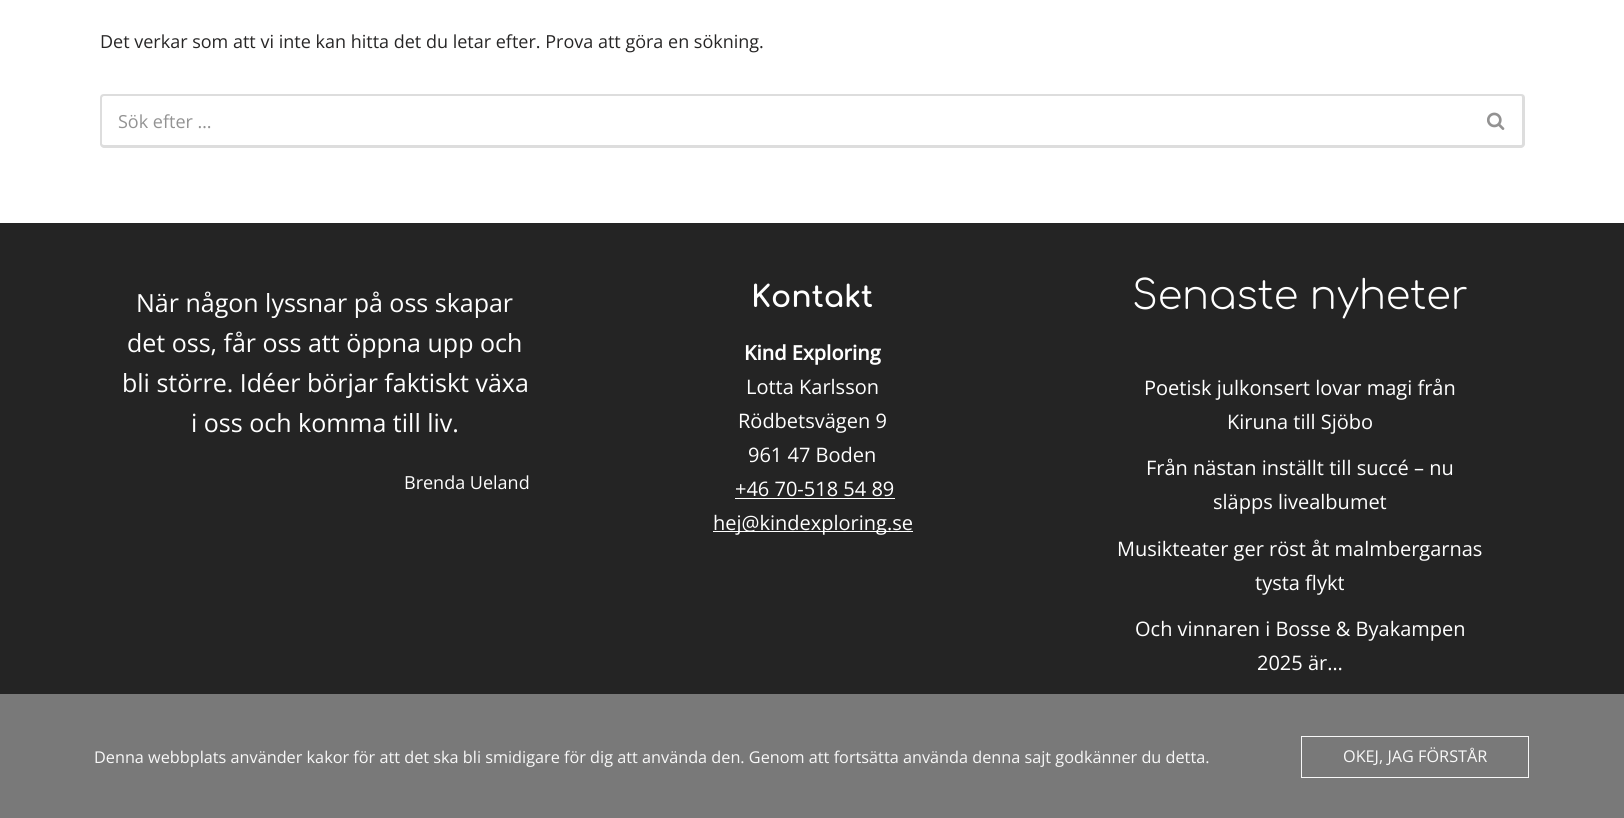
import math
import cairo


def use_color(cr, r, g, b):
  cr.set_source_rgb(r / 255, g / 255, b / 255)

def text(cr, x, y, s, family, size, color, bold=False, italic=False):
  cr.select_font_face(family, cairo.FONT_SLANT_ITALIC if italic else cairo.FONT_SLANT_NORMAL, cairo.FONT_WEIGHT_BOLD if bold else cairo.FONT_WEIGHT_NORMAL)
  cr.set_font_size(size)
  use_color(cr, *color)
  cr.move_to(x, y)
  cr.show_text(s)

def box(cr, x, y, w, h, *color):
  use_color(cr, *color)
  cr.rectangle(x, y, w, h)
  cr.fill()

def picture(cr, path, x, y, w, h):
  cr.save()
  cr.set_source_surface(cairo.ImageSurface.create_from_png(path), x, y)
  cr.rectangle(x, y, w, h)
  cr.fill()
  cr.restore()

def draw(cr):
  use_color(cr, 255, 255, 255)
  cr.paint()
  use_color(cr, 221, 221, 221)
  cr.set_fill_rule(cairo.FILL_RULE_EVEN_ODD)
  cr.new_path()
  cr.move_to(104, 94)
  cr.line_to(1469, 94)
  cr.line_to(1469, 148)
  cr.line_to(104, 148)
  cr.curve_to(102, 148, 100, 146, 100, 144)
  cr.line_to(100, 98)
  cr.curve_to(100, 95, 102, 94, 104, 94)
  cr.close_path()
  cr.move_to(104, 96)
  cr.line_to(1469, 96)
  cr.line_to(1469, 145)
  cr.line_to(104, 145)
  cr.curve_to(103, 145, 102, 144, 102, 144)
  cr.line_to(102, 98)
  cr.curve_to(102, 97, 103, 96, 104, 96)
  cr.close_path()
  cr.fill()
  cr.new_path()
  cr.move_to(1469, 94)
  cr.line_to(1521, 94)
  cr.curve_to(1523, 94, 1525, 95, 1525, 98)
  cr.line_to(1525, 144)
  cr.curve_to(1525, 146, 1523, 148, 1521, 148)
  cr.line_to(1469, 148)
  cr.close_path()
  cr.move_to(1469, 96)
  cr.line_to(1521, 96)
  cr.curve_to(1522, 96, 1522, 97, 1522, 98)
  cr.line_to(1522, 144)
  cr.curve_to(1522, 144, 1522, 145, 1521, 145)
  cr.line_to(1469, 145)
  cr.close_path()
  cr.fill()
  picture(cr, "img_01.png", 1487, 112, 18, 18)
  box(cr, 0, 223, 1624, 471, 36, 36, 36)
  box(cr, 0, 694, 1624, 124, 121, 121, 121)
  box(cr, 735, 498, 160, 1, 255, 255, 255)
  box(cr, 713, 531, 200, 1, 255, 255, 255)
  cr.rectangle(1301.5, 736.5, 227, 41)
  use_color(cr, 248, 248, 248)
  cr.set_line_width(1)
  cr.stroke()
  text(cr, 100, 48, "Det verkar som att vi inte kan hitta det du letar efter. Prova att göra en sökning.", "Open Sans", 18, (39, 38, 38))
  text(cr, 118, 128, "Sök efter …", "Open Sans", 18, (147, 147, 147))
  text(cr, 136, 312, "När någon lyssnar på oss skapar", "Open Sans", 25, (255, 255, 255))
  text(cr, 127, 352, "det oss, får oss att öppna upp och", "Open Sans", 25, (255, 255, 255))
  text(cr, 122, 392, "bli större. Idéer börjar faktiskt växa", "Open Sans", 25, (255, 255, 255))
  text(cr, 191, 432, "i oss och komma till liv.", "Open Sans", 25, (255, 255, 255))
  text(cr, 404, 489, "Brenda Ueland", "Open Sans", 18, (255, 255, 255))
  text(cr, 751, 307, "Kontakt", "Comfortaa", 30, (255, 255, 255), bold=True)
  text(cr, 744, 360, "Kind Exploring", "Open Sans", 20, (255, 255, 255), bold=True)
  text(cr, 746, 394, "Lotta Karlsson", "Open Sans", 20, (255, 255, 255))
  text(cr, 738, 428, "Rödbetsvägen 9", "Open Sans", 20, (255, 255, 255))
  text(cr, 748, 462, "961 47 Boden", "Open Sans", 20, (255, 255, 255))
  text(cr, 735, 496, "+46 70-518 54 89", "Open Sans", 20, (255, 255, 255))
  text(cr, 713, 530, "hej@kindexploring.se", "Open Sans", 20, (255, 255, 255))
  text(cr, 1132, 309, "Senaste nyheter", "Comfortaa Light", 40, (255, 255, 255))
  text(cr, 1144, 395, "Poetisk julkonsert lovar magi från", "Open Sans", 20, (255, 255, 255))
  text(cr, 1227, 429, "Kiruna till Sjöbo", "Open Sans", 20, (255, 255, 255))
  text(cr, 1146, 475, "Från nästan inställt till succé – nu", "Open Sans", 20, (255, 255, 255))
  text(cr, 1213, 509, "släpps livealbumet", "Open Sans", 20, (255, 255, 255))
  text(cr, 1117, 556, "Musikteater ger röst åt malmbergarnas", "Open Sans", 20, (255, 255, 255))
  text(cr, 1255, 590, "tysta flykt", "Open Sans", 20, (255, 255, 255))
  text(cr, 1135, 636, "Och vinnaren i Bosse & Byakampen", "Open Sans", 20, (255, 255, 255))
  text(cr, 1257, 670, "2025 är…", "Open Sans", 20, (255, 255, 255))
  text(cr, 94, 763, "Denna webbplats använder kakor för att det ska bli smidigare för dig att använda den. Genom att fortsätta använda denna sajt godkänner du detta.", "Open Sans", 16.25, (248, 248, 248))
  text(cr, 1343, 762, "OKEJ, JAG FÖRSTÅR", "Open Sans", 16.25, (248, 248, 248))


surface = cairo.ImageSurface(cairo.FORMAT_RGB24, 1624, 818)
cr = cairo.Context(surface)
options = cairo.FontOptions()
options.set_hint_metrics(cairo.HINT_METRICS_OFF)
options.set_hint_style(cairo.HINT_STYLE_NONE)
cr.set_font_options(options)
cr.set_miter_limit(4)
draw(cr)
surface.write_to_png("out.png")
